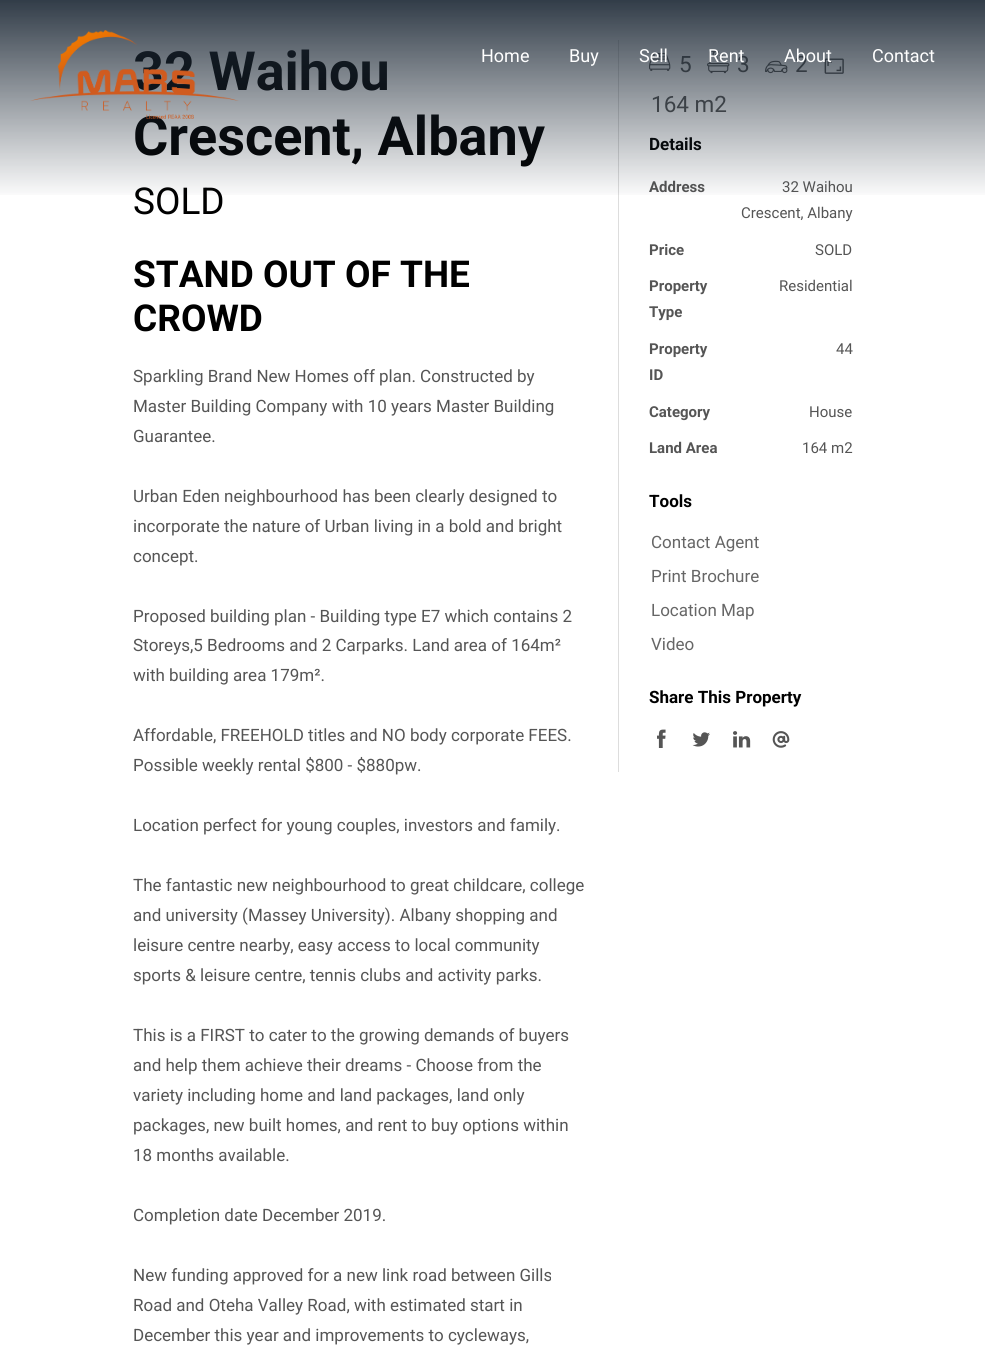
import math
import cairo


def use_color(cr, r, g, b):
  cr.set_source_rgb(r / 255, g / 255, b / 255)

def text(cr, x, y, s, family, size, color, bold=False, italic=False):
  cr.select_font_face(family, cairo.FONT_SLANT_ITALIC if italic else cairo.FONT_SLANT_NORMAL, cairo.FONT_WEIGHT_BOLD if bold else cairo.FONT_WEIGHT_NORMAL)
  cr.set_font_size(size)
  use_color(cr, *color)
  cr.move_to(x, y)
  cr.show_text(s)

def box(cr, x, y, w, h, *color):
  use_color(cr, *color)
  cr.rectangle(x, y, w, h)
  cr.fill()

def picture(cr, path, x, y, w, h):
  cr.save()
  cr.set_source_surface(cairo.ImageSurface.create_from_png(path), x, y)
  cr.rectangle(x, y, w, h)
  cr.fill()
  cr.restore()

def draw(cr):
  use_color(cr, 255, 255, 255)
  cr.paint()
  box(cr, 618, 40, 1, 732, 221, 221, 221)
  picture(cr, "img_02.png", 649, 52, 22, 19)
  picture(cr, "img_03.png", 707, 50, 23, 24)
  picture(cr, "img_04.png", 765, 60, 23, 14)
  picture(cr, "img_05.png", 824, 58, 20, 16)
  picture(cr, "img_06.png", 657, 729, 9, 19)
  picture(cr, "img_07.png", 692, 732, 18, 15)
  picture(cr, "img_08.png", 733, 731, 18, 17)
  picture(cr, "img_09.png", 772, 731, 18, 17)
  text(cr, 133, 90, "32 Waihou", "Roboto", 54, (0, 0, 0), bold=True)
  text(cr, 133, 155, "Crescent, Albany", "Roboto", 54, (0, 0, 0), bold=True)
  text(cr, 133, 214, "SOLD", "Roboto", 37, (0, 0, 0))
  text(cr, 133, 287, "STAND OUT OF THE", "Roboto", 37, (0, 0, 0), bold=True)
  text(cr, 133, 331, "CROWD", "Roboto", 37, (0, 0, 0), bold=True)
  text(cr, 133, 382, "Sparkling Brand New Homes off plan. Constructed by", "Roboto", 17, (85, 85, 85))
  text(cr, 133, 412, "Master Building Company with 10 years Master Building", "Roboto", 17, (85, 85, 85))
  text(cr, 133, 442, "Guarantee.", "Roboto", 17, (85, 85, 85))
  text(cr, 133, 502, "Urban Eden neighbourhood has been clearly designed to", "Roboto", 17, (85, 85, 85))
  text(cr, 133, 532, "incorporate the nature of Urban living in a bold and bright", "Roboto", 17, (85, 85, 85))
  text(cr, 133, 562, "concept.", "Roboto", 17, (85, 85, 85))
  text(cr, 133, 622, "Proposed building plan - Building type E7 which contains 2", "Roboto", 17, (85, 85, 85))
  text(cr, 133, 651, "Storeys,5 Bedrooms and 2 Carparks. Land area of 164m²", "Roboto", 17, (85, 85, 85))
  text(cr, 133, 681, "with building area 179m².", "Roboto", 17, (85, 85, 85))
  text(cr, 133, 741, "Affordable, FREEHOLD titles and NO body corporate FEES.", "Roboto", 17, (85, 85, 85))
  text(cr, 133, 771, "Possible weekly rental $800 - $880pw.", "Roboto", 17, (85, 85, 85))
  text(cr, 133, 831, "Location perfect for young couples, investors and family.", "Roboto", 17, (85, 85, 85))
  text(cr, 133, 891, "The fantastic new neighbourhood to great childcare, college", "Roboto", 17, (85, 85, 85))
  text(cr, 133, 921, "and university (Massey University). Albany shopping and", "Roboto", 17, (85, 85, 85))
  text(cr, 133, 951, "leisure centre nearby, easy access to local community", "Roboto", 17, (85, 85, 85))
  text(cr, 133, 981, "sports & leisure centre, tennis clubs and activity parks.", "Roboto", 17, (85, 85, 85))
  text(cr, 133, 1041, "This is a FIRST to cater to the growing demands of buyers", "Roboto", 17, (85, 85, 85))
  text(cr, 133, 1071, "and help them achieve their dreams - Choose from the", "Roboto", 17, (85, 85, 85))
  text(cr, 133, 1101, "variety including home and land packages, land only", "Roboto", 17, (85, 85, 85))
  text(cr, 133, 1131, "packages, new built homes, and rent to buy options within", "Roboto", 17, (85, 85, 85))
  text(cr, 133, 1161, "18 months available.", "Roboto", 17, (85, 85, 85))
  text(cr, 133, 1221, "Completion date December 2019.", "Roboto", 17, (85, 85, 85))
  text(cr, 133, 1281, "New funding approved for a new link road between Gills", "Roboto", 17, (85, 85, 85))
  text(cr, 133, 1311, "Road and Oteha Valley Road, with estimated start in", "Roboto", 17, (85, 85, 85))
  text(cr, 133, 1341, "December this year and improvements to cycleways,", "Roboto", 17, (85, 85, 85))
  text(cr, 679, 72, "5", "Roboto", 22.5, (85, 85, 85))
  text(cr, 737, 72, "3", "Roboto", 22.5, (85, 85, 85))
  text(cr, 795, 72, "2", "Roboto", 22.5, (85, 85, 85))
  text(cr, 651, 112, "164 m2", "Roboto", 22.5, (85, 85, 85))
  text(cr, 649, 150, "Details", "Roboto", 17, (0, 0, 0), bold=True)
  text(cr, 649, 192, "Address", "Roboto", 15, (85, 85, 85), bold=True)
  text(cr, 782, 192, "32 Waihou", "Roboto", 15, (85, 85, 85))
  gradient = cairo.LinearGradient(493, 0, 493, 200)
  gradient.add_color_stop_rgba(0, 0.106, 0.153, 0.204, 0.9)
  gradient.add_color_stop_rgba(1, 0.106, 0.153, 0.204, 0)
  cr.set_source(gradient)
  cr.rectangle(0, 0, 985, 195)
  cr.fill()
  text(cr, 872, 62, "Contact", "Roboto", 18, (255, 255, 255))
  text(cr, 784, 62, "About", "Roboto", 18, (255, 255, 255))
  text(cr, 708, 62, "Rent", "Roboto", 18, (255, 255, 255))
  text(cr, 639, 62, "Sell", "Roboto", 18, (255, 255, 255))
  text(cr, 569, 62, "Buy", "Roboto", 18, (255, 255, 255))
  text(cr, 481, 62, "Home", "Roboto", 18, (255, 255, 255))
  picture(cr, "img_01.png", 30, 30, 209, 89)
  text(cr, 741, 218, "Crescent, Albany", "Roboto", 15, (85, 85, 85))
  text(cr, 649, 255, "Price", "Roboto", 15, (85, 85, 85), bold=True)
  text(cr, 815, 255, "SOLD", "Roboto", 15, (85, 85, 85))
  text(cr, 649, 291, "Property", "Roboto", 15, (85, 85, 85), bold=True)
  text(cr, 649, 317, "Type", "Roboto", 15, (85, 85, 85), bold=True)
  text(cr, 779, 291, "Residential", "Roboto", 15, (85, 85, 85))
  text(cr, 649, 354, "Property", "Roboto", 15, (85, 85, 85), bold=True)
  text(cr, 649, 380, "ID", "Roboto", 15, (85, 85, 85), bold=True)
  text(cr, 836, 354, "44", "Roboto", 15, (85, 85, 85))
  text(cr, 649, 417, "Category", "Roboto", 15, (85, 85, 85), bold=True)
  text(cr, 809, 417, "House", "Roboto", 15, (85, 85, 85))
  text(cr, 649, 453, "Land Area", "Roboto", 15, (85, 85, 85), bold=True)
  text(cr, 802, 453, "164 m2", "Roboto", 15, (85, 85, 85))
  text(cr, 649, 507, "Tools", "Roboto", 17, (0, 0, 0), bold=True)
  text(cr, 651, 548, "Contact Agent", "Roboto", 17, (102, 102, 102))
  text(cr, 651, 582, "Print Brochure", "Roboto", 17, (102, 102, 102))
  text(cr, 651, 616, "Location Map", "Roboto", 17, (102, 102, 102))
  text(cr, 651, 650, "Video", "Roboto", 17, (102, 102, 102))
  text(cr, 649, 703, "Share This Property", "Roboto", 17, (0, 0, 0), bold=True)


surface = cairo.ImageSurface(cairo.FORMAT_RGB24, 985, 1352)
cr = cairo.Context(surface)
options = cairo.FontOptions()
options.set_hint_metrics(cairo.HINT_METRICS_OFF)
options.set_hint_style(cairo.HINT_STYLE_NONE)
cr.set_font_options(options)
cr.set_miter_limit(4)
draw(cr)
surface.write_to_png("out.png")
